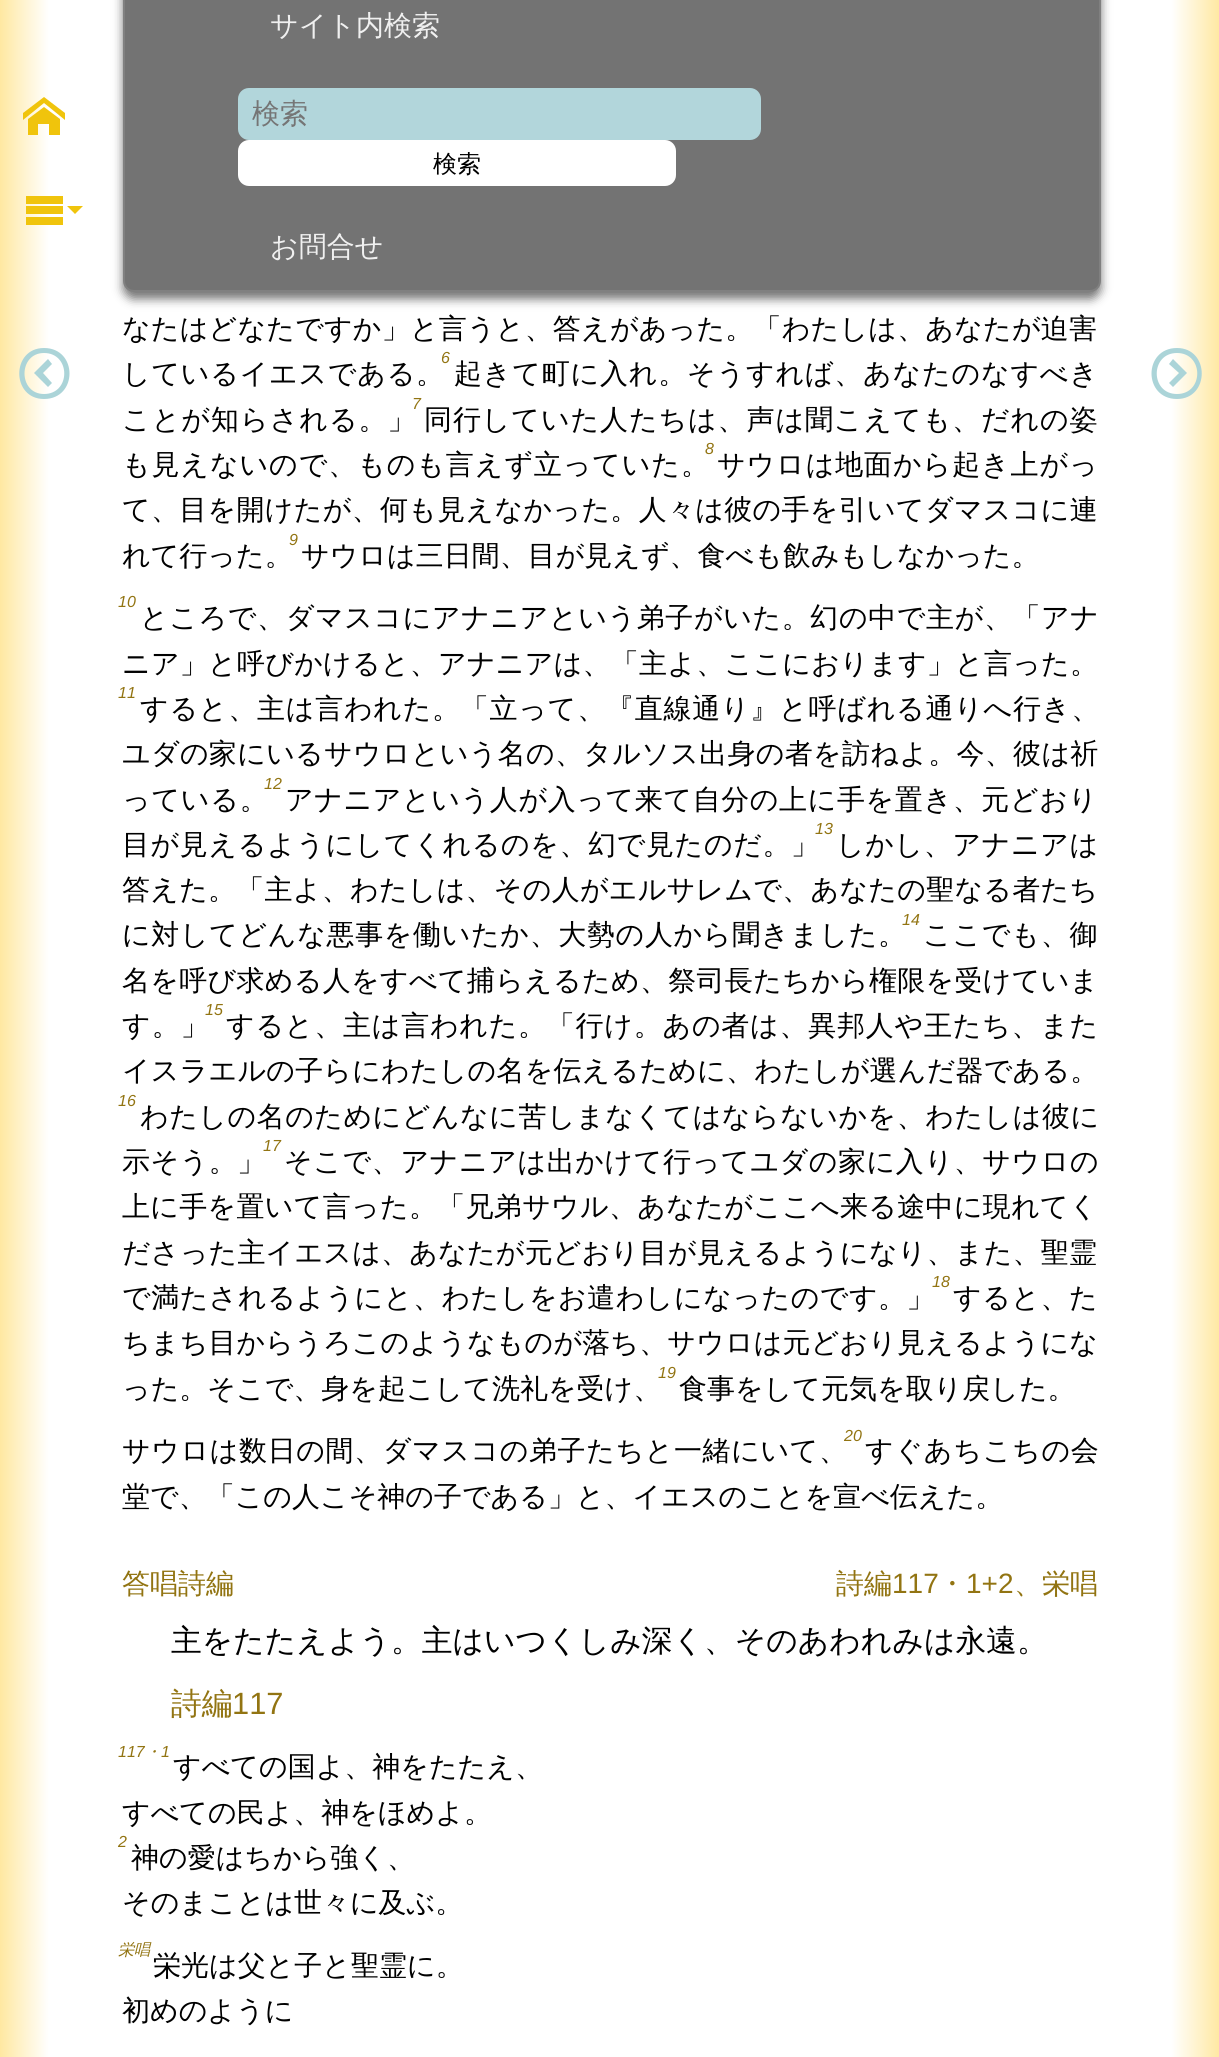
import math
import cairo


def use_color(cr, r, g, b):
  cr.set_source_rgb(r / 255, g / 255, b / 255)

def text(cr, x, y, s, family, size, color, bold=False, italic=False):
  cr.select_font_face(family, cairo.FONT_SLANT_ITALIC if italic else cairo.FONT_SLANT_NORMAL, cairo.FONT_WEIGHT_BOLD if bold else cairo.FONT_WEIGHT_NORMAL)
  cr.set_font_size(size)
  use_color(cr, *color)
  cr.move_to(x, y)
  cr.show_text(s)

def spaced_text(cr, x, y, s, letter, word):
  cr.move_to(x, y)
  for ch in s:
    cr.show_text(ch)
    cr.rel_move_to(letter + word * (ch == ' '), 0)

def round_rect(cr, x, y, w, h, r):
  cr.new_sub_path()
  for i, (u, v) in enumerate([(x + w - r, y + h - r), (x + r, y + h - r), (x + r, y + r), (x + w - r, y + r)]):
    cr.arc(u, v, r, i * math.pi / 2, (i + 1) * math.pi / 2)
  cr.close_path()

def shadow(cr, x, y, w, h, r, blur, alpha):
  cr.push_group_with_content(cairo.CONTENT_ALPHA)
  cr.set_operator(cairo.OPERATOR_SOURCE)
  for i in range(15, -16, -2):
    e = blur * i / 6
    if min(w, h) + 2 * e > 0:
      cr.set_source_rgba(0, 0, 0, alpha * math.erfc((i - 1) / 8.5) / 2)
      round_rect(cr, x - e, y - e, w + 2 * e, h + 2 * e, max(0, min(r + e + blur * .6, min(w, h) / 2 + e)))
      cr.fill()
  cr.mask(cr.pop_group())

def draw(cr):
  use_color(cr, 255, 255, 255)
  cr.paint()
  gradient = cairo.LinearGradient(0, 1437, 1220, 1437)
  gradient.add_color_stop_rgba(0, 1, 0.91, 0.631, 1)
  gradient.add_color_stop_rgba(0.04, 1, 1, 1, 1)
  gradient.add_color_stop_rgba(0.96, 1, 1, 1, 1)
  gradient.add_color_stop_rgba(1, 1, 0.91, 0.631, 1)
  cr.set_source(gradient)
  cr.rectangle(0, 0, 1219, 2057)
  cr.fill()
  use_color(cr, 240, 196, 12)
  cr.new_path()
  cr.move_to(65, 120)
  cr.line_to(44, 103)
  cr.line_to(23, 120)
  cr.line_to(23, 113)
  cr.line_to(44, 97)
  cr.line_to(65, 113)
  cr.close_path()
  cr.move_to(60, 119)
  cr.line_to(60, 135)
  cr.line_to(49, 135)
  cr.line_to(49, 124)
  cr.line_to(38, 124)
  cr.line_to(38, 135)
  cr.line_to(28, 135)
  cr.line_to(28, 119)
  cr.line_to(44, 107)
  cr.close_path()
  cr.fill()
  cr.new_path()
  cr.move_to(26, 196)
  cr.line_to(63, 196)
  cr.line_to(63, 204)
  cr.line_to(26, 204)
  cr.close_path()
  cr.move_to(26, 206)
  cr.line_to(63, 206)
  cr.line_to(63, 214)
  cr.line_to(26, 214)
  cr.close_path()
  cr.move_to(26, 217)
  cr.line_to(63, 217)
  cr.line_to(63, 225)
  cr.line_to(26, 225)
  cr.close_path()
  cr.move_to(67, 206)
  cr.line_to(75, 214)
  cr.line_to(83, 206)
  cr.close_path()
  cr.fill()
  use_color(cr, 117, 117, 117)
  shadow(cr, 123, -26, 978, 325, 11, 5, 1)
  use_color(cr, 115, 115, 115)
  round_rect(cr, 124, -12, 976, 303, 10)
  cr.fill_preserve()
  use_color(cr, 128, 128, 128)
  cr.stroke()
  use_color(cr, 178, 214, 219)
  round_rect(cr, 238, 88, 523, 52, 11)
  cr.fill()
  use_color(cr, 255, 255, 255)
  round_rect(cr, 240.5, 142.5, 433, 41, 8.5)
  cr.fill_preserve()
  cr.set_line_width(5)
  cr.stroke()
  use_color(cr, 171, 212, 216)
  cr.new_path()
  cr.move_to(44, 399)
  cr.curve_to(78, 399, 78, 348, 44, 348)
  cr.curve_to(11, 348, 11, 399, 44, 399)
  cr.close_path()
  cr.move_to(44, 353)
  cr.curve_to(71, 353, 71, 394, 44, 394)
  cr.curve_to(18, 394, 18, 353, 44, 353)
  cr.close_path()
  cr.move_to(52, 364)
  cr.line_to(48, 359)
  cr.line_to(34, 373)
  cr.line_to(48, 387)
  cr.line_to(52, 383)
  cr.line_to(43, 373)
  cr.close_path()
  cr.fill()
  cr.new_path()
  cr.move_to(1177, 348)
  cr.curve_to(1143, 348, 1143, 399, 1177, 399)
  cr.curve_to(1210, 399, 1210, 348, 1177, 348)
  cr.close_path()
  cr.move_to(1177, 394)
  cr.curve_to(1150, 394, 1150, 353, 1177, 353)
  cr.curve_to(1204, 353, 1204, 394, 1177, 394)
  cr.close_path()
  cr.move_to(1169, 383)
  cr.line_to(1173, 387)
  cr.line_to(1187, 373)
  cr.line_to(1173, 359)
  cr.line_to(1169, 364)
  cr.line_to(1179, 373)
  cr.close_path()
  cr.fill()
  text(cr, 270, 35, "サイト内検索", "WenQuanYi Zen Hei Medium", 28, (240, 240, 240))
  text(cr, 252, 123, "検索", "WenQuanYi Zen Hei Medium", 28, (117, 117, 117))
  text(cr, 433, 172, "検索", "WenQuanYi Zen Hei Medium", 24, (0, 0, 0))
  text(cr, 270, 256, "お問合せ", "WenQuanYi Zen Hei Medium", 28, (240, 240, 240))
  use_color(cr, 0, 0, 0)
  spaced_text(cr, 122, 338, "なたはどなたですか」と言うと、答えがあった。「わたしは、あなたが迫害", 0.2, 0)
  spaced_text(cr, 122, 383, "しているイエスである。", 0.75, 0)
  text(cr, 441, 363, "6", "Liberation Sans", 16, (146, 116, 18), italic=True)
  cr.select_font_face("WenQuanYi Zen Hei Medium")
  cr.set_font_size(28)
  use_color(cr, 0, 0, 0)
  spaced_text(cr, 454, 383, "起きて町に入れ。そうすれば、あなたのなすべき", 0.8, 0)
  text(cr, 412, 409, "7", "Liberation Sans", 16, (146, 116, 18), italic=True)
  cr.select_font_face("WenQuanYi Zen Hei Medium")
  cr.set_font_size(28)
  use_color(cr, 0, 0, 0)
  spaced_text(cr, 122, 429, "ことが知らされる。」", 1, 0)
  spaced_text(cr, 424, 429, "同行していた人たちは、声は聞こえても、だれの姿", 0.9, 0)
  spaced_text(cr, 122, 474, "も見えないので、ものも言えず立っていた。", 0.9, 0)
  text(cr, 705, 454, "8", "Liberation Sans", 16, (146, 116, 18), italic=True)
  cr.select_font_face("WenQuanYi Zen Hei Medium")
  cr.set_font_size(28)
  use_color(cr, 0, 0, 0)
  spaced_text(cr, 717, 474, "サウロは地面から起き上がっ", 0.9, 0)
  spaced_text(cr, 122, 519, "て、目を開けたが、何も見えなかった。人々は彼の手を引いてダマスコに連", 0.3, 0)
  text(cr, 122, 565, "れて行った。", "WenQuanYi Zen Hei Medium", 28, (0, 0, 0))
  text(cr, 289, 545, "9", "Liberation Sans", 16, (146, 116, 18), italic=True)
  text(cr, 301, 565, "サウロは三日間、目が見えず、食べも飲みもしなかった。", "WenQuanYi Zen Hei Medium", 28, (0, 0, 0))
  text(cr, 118, 607, "10", "Liberation Sans", 16, (146, 116, 18), italic=True)
  cr.select_font_face("WenQuanYi Zen Hei Medium")
  cr.set_font_size(28)
  use_color(cr, 0, 0, 0)
  spaced_text(cr, 140, 627, "ところで、ダマスコにアナニアという弟子がいた。幻の中で主が、「アナ", 0.6, 0)
  spaced_text(cr, 122, 673, "ニア」と呼びかけると、アナニアは、「主よ、ここにおります」と言った。", 0.25, 0)
  text(cr, 118, 698, "11", "Liberation Sans", 16, (146, 116, 18), italic=True)
  cr.select_font_face("WenQuanYi Zen Hei Medium")
  cr.set_font_size(28)
  use_color(cr, 0, 0, 0)
  spaced_text(cr, 140, 718, "すると、主は言われた。「立って、『直線通り』と呼ばれる通りへ行き、", 0.75, 0)
  spaced_text(cr, 122, 763, "ユダの家にいるサウロという名の、タルソス出身の者を訪ねよ。今、彼は祈", 0.3, 0)
  text(cr, 264, 789, "12", "Liberation Sans", 16, (146, 116, 18), italic=True)
  cr.select_font_face("WenQuanYi Zen Hei Medium")
  cr.set_font_size(28)
  use_color(cr, 0, 0, 0)
  spaced_text(cr, 122, 809, "っている。", 0.75, 0)
  spaced_text(cr, 285, 809, "アナニアという人が入って来て自分の上に手を置き、元どおり", 0.6, 0)
  text(cr, 815, 834, "13", "Liberation Sans", 16, (146, 116, 18), italic=True)
  cr.select_font_face("WenQuanYi Zen Hei Medium")
  cr.set_font_size(28)
  use_color(cr, 0, 0, 0)
  spaced_text(cr, 122, 854, "目が見えるようにしてくれるのを、幻で見たのだ。」", 0.6, 0)
  spaced_text(cr, 836, 854, "しかし、アナニアは", 0.6, 0)
  spaced_text(cr, 122, 899, "答えた。「主よ、わたしは、その人がエルサレムで、あなたの聖なる者たち", 0.25, 0)
  spaced_text(cr, 122, 944, "に対してどんな悪事を働いたか、大勢の人から聞きました。", 0.65, 0)
  text(cr, 902, 925, "14", "Liberation Sans", 16, (146, 116, 18), italic=True)
  cr.select_font_face("WenQuanYi Zen Hei Medium")
  cr.set_font_size(28)
  use_color(cr, 0, 0, 0)
  spaced_text(cr, 923, 944, "ここでも、御", 0.75, 0)
  spaced_text(cr, 122, 990, "名を呼び求める人をすべて捕らえるため、祭司長たちから権限を受けていま", 0.3, 0)
  spaced_text(cr, 122, 1035, "す。」", 1, 0)
  text(cr, 205, 1015, "15", "Liberation Sans", 16, (146, 116, 18), italic=True)
  cr.select_font_face("WenQuanYi Zen Hei Medium")
  cr.set_font_size(28)
  use_color(cr, 0, 0, 0)
  spaced_text(cr, 226, 1035, "すると、主は言われた。「行け。あの者は、異邦人や王たち、また", 0.75, 0)
  spaced_text(cr, 122, 1080, "イスラエルの子らにわたしの名を伝えるために、わたしが選んだ器である。", 0.2, 0)
  text(cr, 118, 1106, "16", "Liberation Sans", 16, (146, 116, 18), italic=True)
  cr.select_font_face("WenQuanYi Zen Hei Medium")
  cr.set_font_size(28)
  use_color(cr, 0, 0, 0)
  spaced_text(cr, 140, 1126, "わたしの名のためにどんなに苦しまなくてはならないかを、わたしは彼に", 0.5, 0)
  text(cr, 263, 1151, "17", "Liberation Sans", 16, (146, 116, 18), italic=True)
  cr.select_font_face("WenQuanYi Zen Hei Medium")
  cr.set_font_size(28)
  use_color(cr, 0, 0, 0)
  spaced_text(cr, 122, 1171, "示そう。」", 0.5, 0)
  spaced_text(cr, 284, 1171, "そこで、アナニアは出かけて行ってユダの家に入り、サウロの", 0.6, 0)
  spaced_text(cr, 122, 1216, "上に手を置いて言った。「兄弟サウル、あなたがここへ来る途中に現れてく", 0.3, 0)
  spaced_text(cr, 122, 1262, "ださった主イエスは、あなたが元どおり目が見えるようになり、また、聖霊", 0.2, 0)
  text(cr, 932, 1287, "18", "Liberation Sans", 16, (146, 116, 18), italic=True)
  cr.select_font_face("WenQuanYi Zen Hei Medium")
  cr.set_font_size(28)
  use_color(cr, 0, 0, 0)
  spaced_text(cr, 122, 1307, "で満たされるようにと、わたしをお遣わしになったのです。」", 0.5, 0)
  spaced_text(cr, 953, 1307, "すると、た", 0.5, 0)
  spaced_text(cr, 122, 1352, "ちまち目からうろこのようなものが落ち、サウロは元どおり見えるようにな", 0.15, 0)
  text(cr, 122, 1398, "った。そこで、身を起こして洗礼を受け、", "WenQuanYi Zen Hei Medium", 28, (0, 0, 0))
  text(cr, 658, 1378, "19", "Liberation Sans", 16, (146, 116, 18), italic=True)
  text(cr, 679, 1398, "食事をして元気を取り戻した。", "WenQuanYi Zen Hei Medium", 28, (0, 0, 0))
  spaced_text(cr, 122, 1460, "サウロは数日の間、ダマスコの弟子たちと一緒にいて、", 0.6, 0)
  text(cr, 844, 1441, "20", "Liberation Sans", 16, (146, 116, 18), italic=True)
  cr.select_font_face("WenQuanYi Zen Hei Medium")
  cr.set_font_size(28)
  use_color(cr, 0, 0, 0)
  spaced_text(cr, 865, 1460, "すぐあちこちの会", 0.75, 0)
  text(cr, 122, 1506, "堂で、「この人こそ神の子である」と、イエスのことを宣べ伝えた。", "WenQuanYi Zen Hei Medium", 28, (0, 0, 0))
  text(cr, 122, 1593, "答唱詩編", "WenQuanYi Zen Hei Medium", 28, (146, 116, 18))
  text(cr, 836, 1593, "詩編", "WenQuanYi Zen Hei Medium", 28, (146, 116, 18))
  text(cr, 892, 1593, "117", "Liberation Sans", 28, (146, 116, 18))
  text(cr, 938, 1593, "・", "WenQuanYi Zen Hei Medium", 28, (146, 116, 18))
  text(cr, 966, 1593, "1+2", "Liberation Sans", 28, (146, 116, 18))
  text(cr, 1014, 1593, "、栄唱", "WenQuanYi Zen Hei Medium", 28, (146, 116, 18))
  text(cr, 171, 1651, "主をたたえよう。主はいつくしみ深く、そのあわれみは永遠。", "WenQuanYi Zen Hei Medium", 30.8, (0, 0, 0))
  text(cr, 171, 1714, "詩編", "WenQuanYi Zen Hei Medium", 30.8, (146, 116, 18))
  text(cr, 232, 1714, "117", "Liberation Sans", 30.8, (146, 116, 18))
  text(cr, 118, 1757, "117", "Liberation Sans", 16, (146, 116, 18), italic=True)
  text(cr, 145, 1757, "・", "WenQuanYi Zen Hei Medium", 16, (146, 116, 18), italic=True)
  text(cr, 161, 1757, "1", "Liberation Sans", 16, (146, 116, 18), italic=True)
  text(cr, 173, 1776, "すべての国よ、神をたたえ、", "WenQuanYi Zen Hei Medium", 28, (0, 0, 0))
  text(cr, 122, 1822, "すべての民よ、神をほめよ。", "WenQuanYi Zen Hei Medium", 28, (0, 0, 0))
  text(cr, 118, 1847, "2", "Liberation Sans", 16, (146, 116, 18), italic=True)
  text(cr, 131, 1867, "神の愛はちから強く、", "WenQuanYi Zen Hei Medium", 28, (0, 0, 0))
  text(cr, 122, 1912, "そのまことは世々に及ぶ。", "WenQuanYi Zen Hei Medium", 28, (0, 0, 0))
  text(cr, 118, 1955, "栄唱", "WenQuanYi Zen Hei Medium", 16, (146, 116, 18), italic=True)
  text(cr, 153, 1975, "栄光は父と子と聖霊に。", "WenQuanYi Zen Hei Medium", 28, (0, 0, 0))
  text(cr, 122, 2020, "初めのように", "WenQuanYi Zen Hei Medium", 28, (0, 0, 0))


surface = cairo.ImageSurface(cairo.FORMAT_RGB24, 1219, 2057)
cr = cairo.Context(surface)
options = cairo.FontOptions()
options.set_hint_metrics(cairo.HINT_METRICS_OFF)
options.set_hint_style(cairo.HINT_STYLE_NONE)
cr.set_font_options(options)
cr.set_miter_limit(4)
draw(cr)
surface.write_to_png("out.png")
